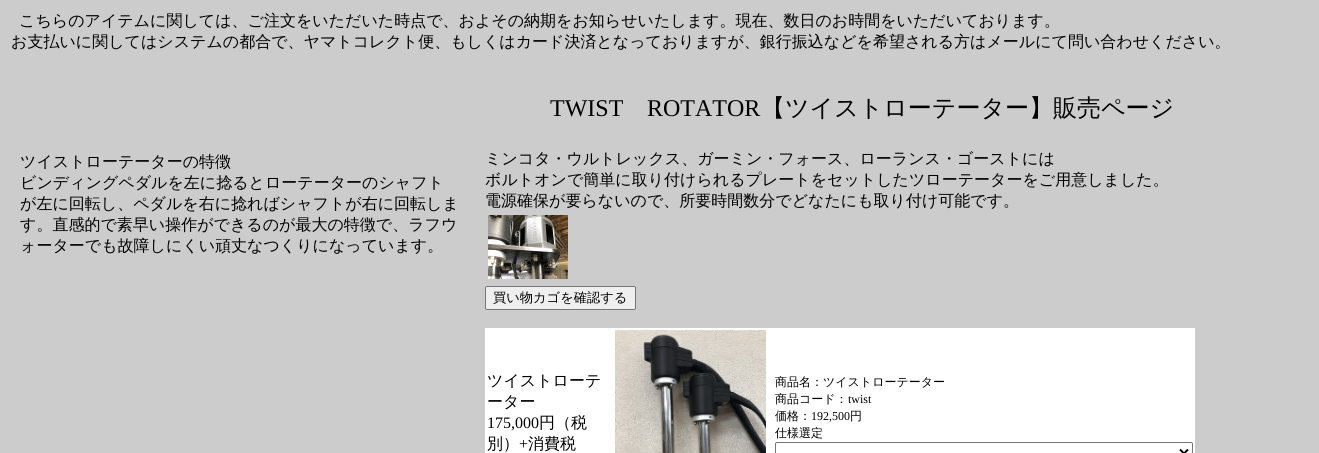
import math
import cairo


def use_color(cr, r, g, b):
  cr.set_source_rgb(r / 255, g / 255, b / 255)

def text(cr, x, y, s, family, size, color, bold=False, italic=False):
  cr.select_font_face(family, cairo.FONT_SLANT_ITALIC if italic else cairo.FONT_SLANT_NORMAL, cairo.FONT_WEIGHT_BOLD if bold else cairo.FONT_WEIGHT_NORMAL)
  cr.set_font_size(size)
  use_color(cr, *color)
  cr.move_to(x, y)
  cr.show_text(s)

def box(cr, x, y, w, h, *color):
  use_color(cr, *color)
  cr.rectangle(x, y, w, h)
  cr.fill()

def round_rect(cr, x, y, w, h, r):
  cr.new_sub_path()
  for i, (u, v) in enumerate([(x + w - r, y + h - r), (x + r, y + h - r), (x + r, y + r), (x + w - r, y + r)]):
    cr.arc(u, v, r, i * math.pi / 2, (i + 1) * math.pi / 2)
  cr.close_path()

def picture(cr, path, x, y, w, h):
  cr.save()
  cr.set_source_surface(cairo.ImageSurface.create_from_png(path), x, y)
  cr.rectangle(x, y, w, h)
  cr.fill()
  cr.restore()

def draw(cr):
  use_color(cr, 204, 204, 204)
  cr.paint()
  picture(cr, "img_01.png", 488, 215, 80, 64)
  use_color(cr, 239, 239, 239)
  round_rect(cr, 485.5, 286.5, 150, 23, 1.5)
  cr.fill_preserve()
  use_color(cr, 118, 118, 118)
  cr.set_line_width(1)
  cr.stroke()
  box(cr, 485, 328, 710, 125, 255, 255, 255)
  picture(cr, "img_02.png", 615, 330, 151, 123)
  round_rect(cr, 775.5, 442.5, 417, 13, 1.5)
  use_color(cr, 118, 118, 118)
  cr.stroke()
  cr.new_path()
  cr.move_to(1180, 449.5)
  cr.line_to(1184, 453.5)
  cr.line_to(1188, 449.5)
  use_color(cr, 0, 0, 0)
  cr.set_line_width(2)
  cr.stroke()
  text(cr, 19, 26, "こちらのアイテムに関しては、ご注文をいただいた時点で、およその納期をお知らせいたします。現在、数日のお時間をいただいております。", "WenQuanYi Zen Hei Medium", 16, (0, 0, 0))
  text(cr, 11, 47, "お支払いに関してはシステムの都合で、ヤマトコレクト便、もしくはカード決済となっておりますが、銀行振込などを希望される方はメールにて問い合わせください。", "WenQuanYi Zen Hei Medium", 16, (0, 0, 0))
  text(cr, 550, 116, "TWIST", "Liberation Serif", 24, (0, 0, 0))
  text(cr, 647, 116, "ROTATOR", "Liberation Serif", 24, (0, 0, 0))
  text(cr, 761, 116, "【ツイストローテーター】販売ページ", "WenQuanYi Zen Hei Medium", 24, (0, 0, 0))
  text(cr, 20, 167, "ツイストローテーターの特徴", "WenQuanYi Zen Hei Medium", 16, (0, 0, 0))
  text(cr, 20, 188, "ビンディングペダルを左に捻るとローテーターのシャフト", "WenQuanYi Zen Hei Medium", 16, (0, 0, 0))
  text(cr, 20, 209, "が左に回転し、ペダルを右に捻ればシャフトが右に回転しま", "WenQuanYi Zen Hei Medium", 16, (0, 0, 0))
  text(cr, 20, 230, "す。直感的で素早い操作ができるのが最大の特徴で、ラフウ", "WenQuanYi Zen Hei Medium", 16, (0, 0, 0))
  text(cr, 20, 251, "ォーターでも故障しにくい頑丈なつくりになっています。", "WenQuanYi Zen Hei Medium", 16, (0, 0, 0))
  text(cr, 485, 164, "ミンコタ・ウルトレックス、ガーミン・フォース、ローランス・ゴーストには", "WenQuanYi Zen Hei Medium", 16, (0, 0, 0))
  text(cr, 485, 185, "ボルトオンで簡単に取り付けられるプレートをセットしたツローテーターをご用意しました。", "WenQuanYi Zen Hei Medium", 16, (0, 0, 0))
  text(cr, 485, 206, "電源確保が要らないので、所要時間数分でどなたにも取り付け可能です。", "WenQuanYi Zen Hei Medium", 16, (0, 0, 0))
  text(cr, 493, 302, "買い物カゴを確認する", "WenQuanYi Zen Hei Medium", 13.25, (0, 0, 0))
  text(cr, 487, 386, "ツイストローテ", "WenQuanYi Zen Hei Medium", 16, (0, 0, 0))
  text(cr, 487, 407, "ーター", "WenQuanYi Zen Hei Medium", 16, (0, 0, 0))
  text(cr, 487, 428, "175,000", "Liberation Serif", 16, (0, 0, 0))
  text(cr, 539, 428, "円（税", "WenQuanYi Zen Hei Medium", 16, (0, 0, 0))
  text(cr, 487, 449, "別）", "WenQuanYi Zen Hei Medium", 16, (0, 0, 0))
  text(cr, 519, 449, "+", "Liberation Serif", 16, (0, 0, 0))
  text(cr, 528, 449, "消費税", "WenQuanYi Zen Hei Medium", 16, (0, 0, 0))
  text(cr, 775, 386, "商品名：ツイストローテーター", "WenQuanYi Zen Hei Medium", 12, (0, 0, 0))
  text(cr, 775, 403, "商品コード：", "WenQuanYi Zen Hei Medium", 12, (0, 0, 0))
  text(cr, 848, 403, "twist", "Liberation Serif", 12, (0, 0, 0))
  text(cr, 775, 420, "価格：", "WenQuanYi Zen Hei Medium", 12, (0, 0, 0))
  text(cr, 811, 420, "192,500", "Liberation Serif", 12, (0, 0, 0))
  text(cr, 850, 420, "円", "WenQuanYi Zen Hei Medium", 12, (0, 0, 0))
  text(cr, 775, 437, "仕様選定", "WenQuanYi Zen Hei Medium", 12, (0, 0, 0))


surface = cairo.ImageSurface(cairo.FORMAT_RGB24, 1319, 453)
cr = cairo.Context(surface)
options = cairo.FontOptions()
options.set_hint_metrics(cairo.HINT_METRICS_OFF)
options.set_hint_style(cairo.HINT_STYLE_NONE)
cr.set_font_options(options)
cr.set_miter_limit(4)
draw(cr)
surface.write_to_png("out.png")
